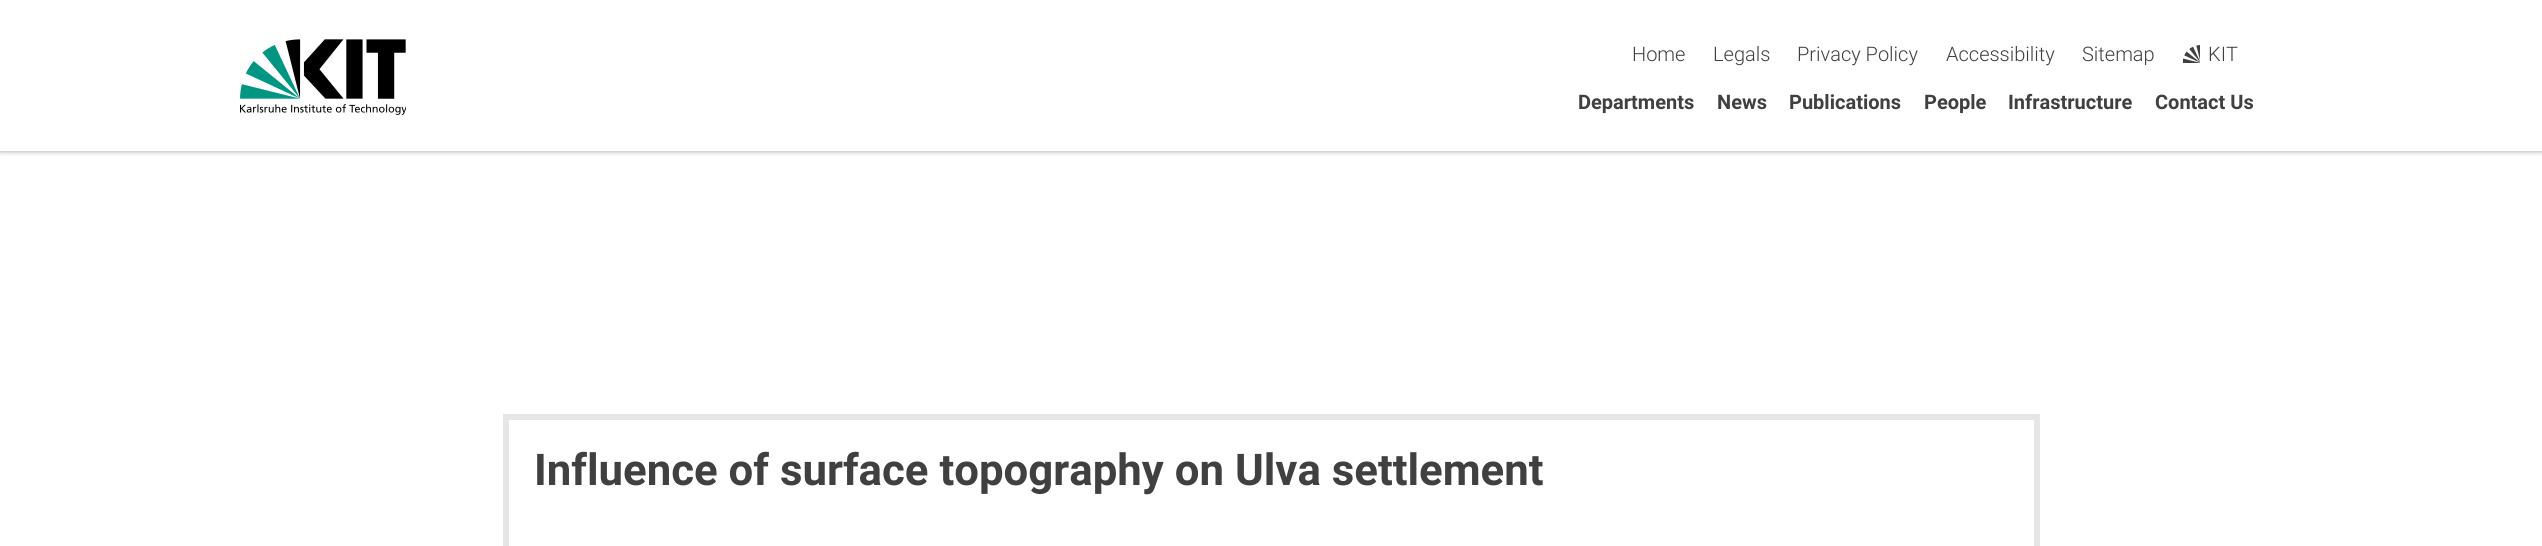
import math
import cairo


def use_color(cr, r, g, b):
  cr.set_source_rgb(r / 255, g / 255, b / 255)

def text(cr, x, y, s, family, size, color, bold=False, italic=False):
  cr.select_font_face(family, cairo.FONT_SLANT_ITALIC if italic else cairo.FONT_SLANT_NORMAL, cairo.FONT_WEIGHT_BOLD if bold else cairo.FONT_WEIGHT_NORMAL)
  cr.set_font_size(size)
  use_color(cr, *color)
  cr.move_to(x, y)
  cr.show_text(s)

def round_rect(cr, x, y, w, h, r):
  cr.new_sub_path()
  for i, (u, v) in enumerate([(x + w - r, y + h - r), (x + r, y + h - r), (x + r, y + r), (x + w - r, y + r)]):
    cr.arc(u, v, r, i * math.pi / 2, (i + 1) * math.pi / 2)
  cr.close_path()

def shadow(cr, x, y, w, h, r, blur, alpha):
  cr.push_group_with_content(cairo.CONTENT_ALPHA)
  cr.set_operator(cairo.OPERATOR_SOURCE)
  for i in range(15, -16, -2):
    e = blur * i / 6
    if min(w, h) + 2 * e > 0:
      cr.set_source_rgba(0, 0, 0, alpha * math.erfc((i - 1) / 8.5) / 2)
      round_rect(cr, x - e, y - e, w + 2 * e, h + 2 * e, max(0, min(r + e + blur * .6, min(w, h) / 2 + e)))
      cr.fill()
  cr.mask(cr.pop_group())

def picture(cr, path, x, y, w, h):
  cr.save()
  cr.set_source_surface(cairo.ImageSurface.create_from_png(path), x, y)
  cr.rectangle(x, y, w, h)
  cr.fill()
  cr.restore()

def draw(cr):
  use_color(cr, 255, 255, 255)
  cr.paint()
  cr.save()
  cr.rectangle(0, 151, 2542, 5)
  cr.clip()
  use_color(cr, 64, 64, 64)
  shadow(cr, 0, 0, 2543, 151, 0, 3, 0.5)
  cr.restore()
  picture(cr, "img_01.png", 240, 39, 166, 76)
  picture(cr, "img_02.png", 2183, 45, 17, 18)
  cr.rectangle(506, 417, 1531, 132)
  use_color(cr, 230, 230, 230)
  cr.set_line_width(6)
  cr.stroke()
  text(cr, 1632, 61, "Home", "Roboto Light", 20, (64, 64, 64))
  text(cr, 1713, 61, "Legals", "Roboto Light", 20, (64, 64, 64))
  text(cr, 1797, 61, "Privacy Policy", "Roboto Light", 20, (64, 64, 64))
  text(cr, 1946, 61, "Accessibility", "Roboto Light", 20, (64, 64, 64))
  text(cr, 2082, 61, "Sitemap", "Roboto Light", 20, (64, 64, 64))
  text(cr, 2208, 61, "KIT", "Roboto Light", 20, (64, 64, 64))
  text(cr, 1578, 109, "Departments", "Roboto", 20, (64, 64, 64), bold=True)
  text(cr, 1717, 109, "News", "Roboto", 20, (64, 64, 64), bold=True)
  text(cr, 1789, 109, "Publications", "Roboto", 20, (64, 64, 64), bold=True)
  text(cr, 1924, 109, "People", "Roboto", 20, (64, 64, 64), bold=True)
  text(cr, 2008, 109, "Infrastructure", "Roboto", 20, (64, 64, 64), bold=True)
  text(cr, 2155, 109, "Contact Us", "Roboto", 20, (64, 64, 64), bold=True)
  text(cr, 534, 485, "Influence of surface topography on Ulva settlement", "Roboto", 43.75, (64, 64, 64), bold=True)


surface = cairo.ImageSurface(cairo.FORMAT_RGB24, 2542, 546)
cr = cairo.Context(surface)
options = cairo.FontOptions()
options.set_hint_metrics(cairo.HINT_METRICS_OFF)
options.set_hint_style(cairo.HINT_STYLE_NONE)
cr.set_font_options(options)
cr.set_miter_limit(4)
draw(cr)
surface.write_to_png("out.png")
